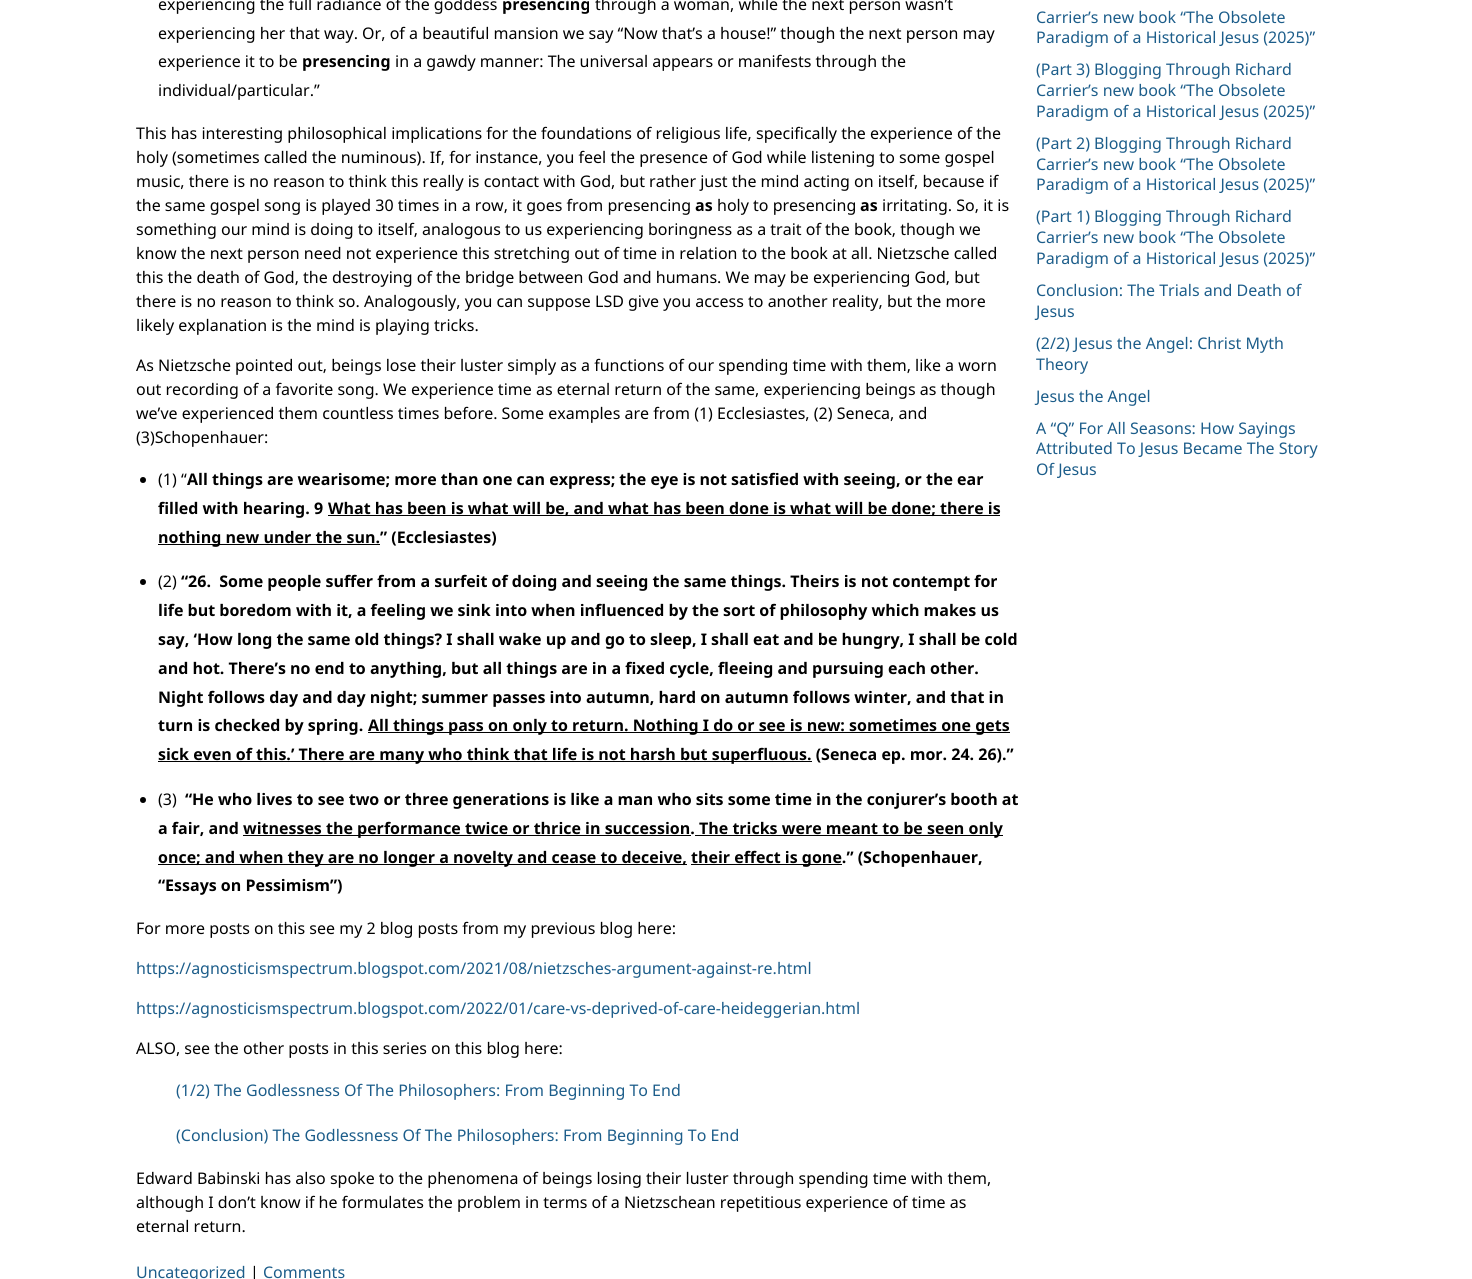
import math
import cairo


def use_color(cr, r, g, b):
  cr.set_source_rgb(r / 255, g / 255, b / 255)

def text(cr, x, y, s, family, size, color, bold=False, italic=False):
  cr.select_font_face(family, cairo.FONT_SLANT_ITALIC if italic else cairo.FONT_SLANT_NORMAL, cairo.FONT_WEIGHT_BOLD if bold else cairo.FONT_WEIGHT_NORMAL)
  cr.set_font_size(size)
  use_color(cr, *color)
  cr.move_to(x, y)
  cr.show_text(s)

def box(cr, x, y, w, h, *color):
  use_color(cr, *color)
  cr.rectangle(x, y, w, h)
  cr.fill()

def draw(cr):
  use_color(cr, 255, 255, 255)
  cr.paint()
  use_color(cr, 0, 0, 0)
  cr.arc(143, 480, 3, 0, 2 * math.pi)
  cr.fill()
  box(cr, 328, 515, 672, 1, 0, 0, 0)
  box(cr, 158, 544, 222, 1, 0, 0, 0)
  cr.arc(143, 582, 3, 0, 2 * math.pi)
  cr.fill()
  box(cr, 368, 732, 642, 1, 0, 0, 0)
  box(cr, 158, 761, 654, 1, 0, 0, 0)
  cr.arc(143, 800, 3, 0, 2 * math.pi)
  cr.fill()
  box(cr, 243, 835, 448, 1, 0, 0, 0)
  box(cr, 695, 835, 308, 1, 0, 0, 0)
  box(cr, 158, 864, 529, 1, 0, 0, 0)
  box(cr, 691, 864, 151, 1, 0, 0, 0)
  text(cr, 158, 10, "experiencing the full radiance of the goddess", "Noto Sans", 16, (0, 0, 0))
  text(cr, 502, 10, "presencing", "Noto Sans", 16, (0, 0, 0), bold=True)
  text(cr, 595, 10, "through a woman, while the next person wasn’t", "Noto Sans", 16, (0, 0, 0))
  text(cr, 158, 39, "experiencing her that way. Or, of a beautiful mansion we say “Now that’s a house!” though the next person may", "Noto Sans", 16, (0, 0, 0))
  text(cr, 158, 67, "experience it to be", "Noto Sans", 16, (0, 0, 0))
  text(cr, 302, 67, "presencing", "Noto Sans", 16, (0, 0, 0), bold=True)
  text(cr, 395, 67, "in a gawdy manner: The universal appears or manifests through the", "Noto Sans", 16, (0, 0, 0))
  text(cr, 158, 96, "individual/particular.”", "Noto Sans", 16, (0, 0, 0))
  text(cr, 136, 139, "This has interesting philosophical implications for the foundations of religious life, specifically the experience of the", "Noto Sans", 16, (0, 0, 0))
  text(cr, 136, 163, "holy (sometimes called the numinous). If, for instance, you feel the presence of God while listening to some gospel", "Noto Sans", 16, (0, 0, 0))
  text(cr, 136, 187, "music, there is no reason to think this really is contact with God, but rather just the mind acting on itself, because if", "Noto Sans", 16, (0, 0, 0))
  text(cr, 136, 211, "the same gospel song is played 30 times in a row, it goes from presencing", "Noto Sans", 16, (0, 0, 0))
  text(cr, 695, 211, "as", "Noto Sans", 16, (0, 0, 0), bold=True)
  text(cr, 717, 211, "holy to presencing", "Noto Sans", 16, (0, 0, 0))
  text(cr, 860, 211, "as", "Noto Sans", 16, (0, 0, 0), bold=True)
  text(cr, 882, 211, "irritating. So, it is", "Noto Sans", 16, (0, 0, 0))
  text(cr, 136, 235, "something our mind is doing to itself, analogous to us experiencing boringness as a trait of the book, though we", "Noto Sans", 16, (0, 0, 0))
  text(cr, 136, 259, "know the next person need not experience this stretching out of time in relation to the book at all. Nietzsche called", "Noto Sans", 16, (0, 0, 0))
  text(cr, 136, 283, "this the death of God, the destroying of the bridge between God and humans. We may be experiencing God, but", "Noto Sans", 16, (0, 0, 0))
  text(cr, 136, 307, "there is no reason to think so. Analogously, you can suppose LSD give you access to another reality, but the more", "Noto Sans", 16, (0, 0, 0))
  text(cr, 136, 331, "likely explanation is the mind is playing tricks.", "Noto Sans", 16, (0, 0, 0))
  text(cr, 136, 371, "As Nietzsche pointed out, beings lose their luster simply as a functions of our spending time with them, like a worn", "Noto Sans", 16, (0, 0, 0))
  text(cr, 136, 395, "out recording of a favorite song. We experience time as eternal return of the same, experiencing beings as though", "Noto Sans", 16, (0, 0, 0))
  text(cr, 136, 419, "we’ve experienced them countless times before. Some examples are from (1) Ecclesiastes, (2) Seneca, and", "Noto Sans", 16, (0, 0, 0))
  text(cr, 136, 443, "(3)Schopenhauer:", "Noto Sans", 16, (0, 0, 0))
  text(cr, 158, 485, "(1) “", "Noto Sans", 16, (0, 0, 0))
  text(cr, 187, 485, "All things are wearisome; more than one can express; the eye is not satisfied with seeing, or the ear", "Noto Sans", 16, (0, 0, 0), bold=True)
  text(cr, 158, 514, "filled with hearing. 9", "Noto Sans", 16, (0, 0, 0), bold=True)
  text(cr, 328, 514, "What has been is what will be, and what has been done is what will be done; there is", "Noto Sans", 16, (0, 0, 0), bold=True)
  text(cr, 158, 543, "nothing new under the sun.” (Ecclesiastes)", "Noto Sans", 16, (0, 0, 0), bold=True)
  text(cr, 158, 587, "(2)", "Noto Sans", 16, (0, 0, 0))
  text(cr, 181, 587, "“26.  Some people suffer from a surfeit of doing and seeing the same things. Theirs is not contempt for", "Noto Sans", 16, (0, 0, 0), bold=True)
  text(cr, 158, 616, "life but boredom with it, a feeling we sink into when influenced by the sort of philosophy which makes us", "Noto Sans", 16, (0, 0, 0), bold=True)
  text(cr, 158, 645, "say, ‘How long the same old things? I shall wake up and go to sleep, I shall eat and be hungry, I shall be cold", "Noto Sans", 16, (0, 0, 0), bold=True)
  text(cr, 158, 674, "and hot. There’s no end to anything, but all things are in a fixed cycle, fleeing and pursuing each other.", "Noto Sans", 16, (0, 0, 0), bold=True)
  text(cr, 158, 703, "Night follows day and day night; summer passes into autumn, hard on autumn follows winter, and that in", "Noto Sans", 16, (0, 0, 0), bold=True)
  text(cr, 158, 731, "turn is checked by spring.", "Noto Sans", 16, (0, 0, 0), bold=True)
  text(cr, 368, 731, "All things pass on only to return. Nothing I do or see is new: sometimes one gets", "Noto Sans", 16, (0, 0, 0), bold=True)
  text(cr, 158, 760, "sick even of this.’ There are many who think that life is not harsh but superfluous. (Seneca ep. mor. 24. 26).”", "Noto Sans", 16, (0, 0, 0), bold=True)
  text(cr, 158, 805, "(3)", "Noto Sans", 16, (0, 0, 0))
  text(cr, 185, 805, "“He who lives to see two or three generations is like a man who sits some time in the conjurer’s booth at", "Noto Sans", 16, (0, 0, 0), bold=True)
  text(cr, 158, 834, "a fair, and", "Noto Sans", 16, (0, 0, 0), bold=True)
  text(cr, 243, 834, "witnesses the performance twice or thrice in succession.", "Noto Sans", 16, (0, 0, 0), bold=True)
  text(cr, 699, 834, "The tricks were meant to be seen only", "Noto Sans", 16, (0, 0, 0), bold=True)
  text(cr, 158, 863, "once; and when they are no longer a novelty and cease to deceive,", "Noto Sans", 16, (0, 0, 0), bold=True)
  text(cr, 691, 863, "their effect is gone.” (Schopenhauer,", "Noto Sans", 16, (0, 0, 0), bold=True)
  text(cr, 158, 891, "“Essays on Pessimism”)", "Noto Sans", 16, (0, 0, 0), bold=True)
  text(cr, 136, 934, "For more posts on this see my 2 blog posts from my previous blog here:", "Noto Sans", 16, (0, 0, 0))
  text(cr, 136, 974, "https://agnosticismspectrum.blogspot.com/2021/08/nietzsches-argument-against-re.html", "Noto Sans", 16, (28, 93, 138))
  text(cr, 136, 1014, "https://agnosticismspectrum.blogspot.com/2022/01/care-vs-deprived-of-care-heideggerian.html", "Noto Sans", 16, (28, 93, 138))
  text(cr, 136, 1054, "ALSO, see the other posts in this series on this blog here:", "Noto Sans", 16, (0, 0, 0))
  text(cr, 176, 1096, "(1/2) The Godlessness Of The Philosophers: From Beginning To End", "Noto Sans", 16, (28, 93, 138))
  text(cr, 176, 1141, "(Conclusion) The Godlessness Of The Philosophers: From Beginning To End", "Noto Sans", 16, (28, 93, 138))
  text(cr, 136, 1184, "Edward Babinski has also spoke to the phenomena of beings losing their luster through spending time with them,", "Noto Sans", 16, (0, 0, 0))
  text(cr, 136, 1208, "although I don’t know if he formulates the problem in terms of a Nietzschean repetitious experience of time as", "Noto Sans", 16, (0, 0, 0))
  text(cr, 136, 1232, "eternal return.", "Noto Sans", 16, (0, 0, 0))
  text(cr, 136, 1278, "Uncategorized", "Noto Sans", 16, (28, 93, 138))
  text(cr, 250, 1278, "|", "Noto Sans", 16, (0, 0, 0))
  text(cr, 263, 1278, "Comments", "Noto Sans", 16, (28, 93, 138))
  text(cr, 1036, 23, "Carrier’s new book “The Obsolete", "Noto Sans", 16, (28, 93, 138))
  text(cr, 1036, 43, "Paradigm of a Historical Jesus (2025)”", "Noto Sans", 16, (28, 93, 138))
  text(cr, 1036, 75, "(Part 3) Blogging Through Richard", "Noto Sans", 16, (28, 93, 138))
  text(cr, 1036, 96, "Carrier’s new book “The Obsolete", "Noto Sans", 16, (28, 93, 138))
  text(cr, 1036, 117, "Paradigm of a Historical Jesus (2025)”", "Noto Sans", 16, (28, 93, 138))
  text(cr, 1036, 149, "(Part 2) Blogging Through Richard", "Noto Sans", 16, (28, 93, 138))
  text(cr, 1036, 170, "Carrier’s new book “The Obsolete", "Noto Sans", 16, (28, 93, 138))
  text(cr, 1036, 190, "Paradigm of a Historical Jesus (2025)”", "Noto Sans", 16, (28, 93, 138))
  text(cr, 1036, 222, "(Part 1) Blogging Through Richard", "Noto Sans", 16, (28, 93, 138))
  text(cr, 1036, 243, "Carrier’s new book “The Obsolete", "Noto Sans", 16, (28, 93, 138))
  text(cr, 1036, 264, "Paradigm of a Historical Jesus (2025)”", "Noto Sans", 16, (28, 93, 138))
  text(cr, 1036, 296, "Conclusion: The Trials and Death of", "Noto Sans", 16, (28, 93, 138))
  text(cr, 1036, 317, "Jesus", "Noto Sans", 16, (28, 93, 138))
  text(cr, 1036, 349, "(2/2) Jesus the Angel: Christ Myth", "Noto Sans", 16, (28, 93, 138))
  text(cr, 1036, 370, "Theory", "Noto Sans", 16, (28, 93, 138))
  text(cr, 1036, 402, "Jesus the Angel", "Noto Sans", 16, (28, 93, 138))
  text(cr, 1036, 434, "A “Q” For All Seasons: How Sayings", "Noto Sans", 16, (28, 93, 138))
  text(cr, 1036, 454, "Attributed To Jesus Became The Story", "Noto Sans", 16, (28, 93, 138))
  text(cr, 1036, 475, "Of Jesus", "Noto Sans", 16, (28, 93, 138))


surface = cairo.ImageSurface(cairo.FORMAT_RGB24, 1472, 1279)
cr = cairo.Context(surface)
options = cairo.FontOptions()
options.set_hint_metrics(cairo.HINT_METRICS_OFF)
options.set_hint_style(cairo.HINT_STYLE_NONE)
cr.set_font_options(options)
cr.set_miter_limit(4)
draw(cr)
surface.write_to_png("out.png")
